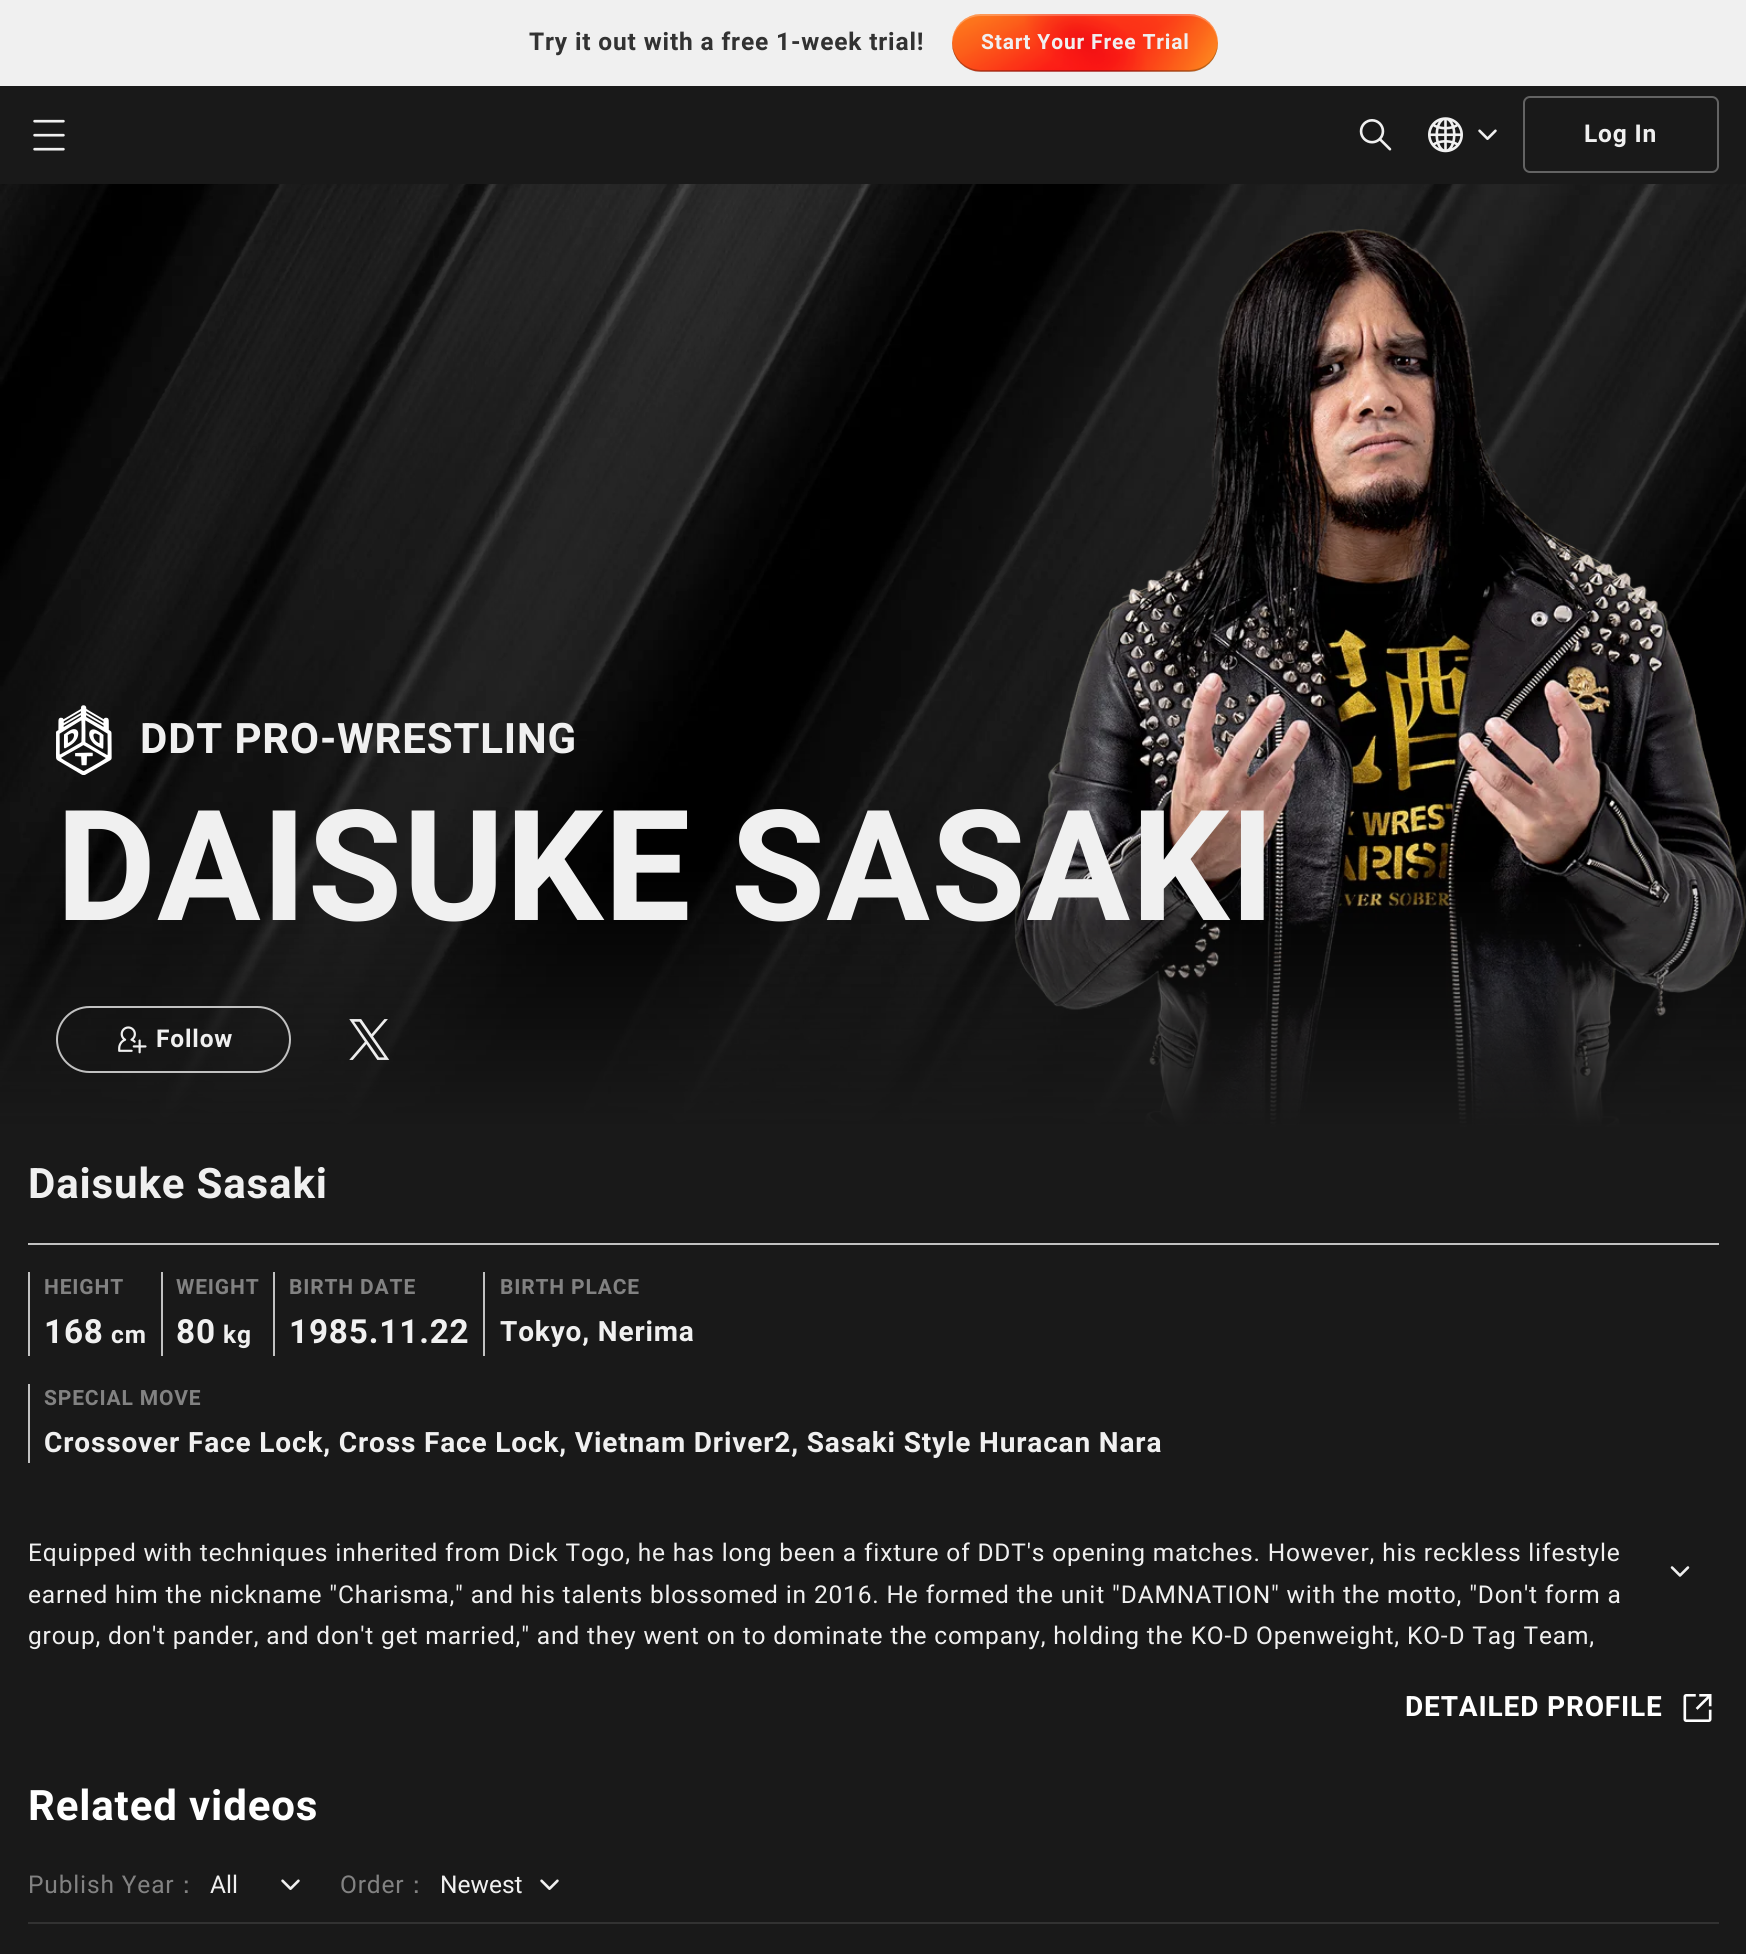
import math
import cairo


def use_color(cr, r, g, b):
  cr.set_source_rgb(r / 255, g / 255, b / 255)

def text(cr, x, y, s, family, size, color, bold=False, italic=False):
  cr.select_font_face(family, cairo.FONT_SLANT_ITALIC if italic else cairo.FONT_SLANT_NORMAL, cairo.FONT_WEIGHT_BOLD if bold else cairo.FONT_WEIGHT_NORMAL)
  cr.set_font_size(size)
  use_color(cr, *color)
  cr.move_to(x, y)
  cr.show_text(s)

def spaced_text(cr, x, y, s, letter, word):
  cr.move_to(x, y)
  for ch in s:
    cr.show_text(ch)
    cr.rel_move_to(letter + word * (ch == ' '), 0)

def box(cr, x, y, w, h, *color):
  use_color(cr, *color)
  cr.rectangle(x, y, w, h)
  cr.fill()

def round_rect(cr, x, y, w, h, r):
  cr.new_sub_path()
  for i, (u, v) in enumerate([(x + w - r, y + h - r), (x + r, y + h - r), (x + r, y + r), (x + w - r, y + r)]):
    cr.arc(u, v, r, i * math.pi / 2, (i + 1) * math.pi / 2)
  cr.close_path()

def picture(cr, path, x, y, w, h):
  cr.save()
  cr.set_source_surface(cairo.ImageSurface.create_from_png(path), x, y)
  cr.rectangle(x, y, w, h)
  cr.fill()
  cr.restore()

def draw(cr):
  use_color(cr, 25, 25, 25)
  cr.paint()
  box(cr, 0, 0, 1746, 86, 240, 240, 240)
  picture(cr, "img_01.png", 952, 14, 266, 58)
  cr.set_source_rgba(0, 0, 0, 0.25)
  cr.new_path()
  cr.move_to(952, 42)
  cr.line_to(952, 43)
  cr.curve_to(952, 59, 965, 72, 981, 72)
  cr.line_to(1189, 72)
  cr.curve_to(1205, 72, 1218, 59, 1218, 43)
  cr.line_to(1218, 42)
  cr.curve_to(1217, 58, 1205, 70, 1189, 70)
  cr.line_to(981, 70)
  cr.curve_to(965, 70, 953, 58, 952, 42)
  cr.close_path()
  cr.fill()
  cr.set_source_rgba(1, 1, 1, 0.25)
  cr.new_path()
  cr.move_to(981, 16)
  cr.line_to(1189, 16)
  cr.curve_to(1205, 16, 1217, 28, 1218, 44)
  cr.line_to(1218, 43)
  cr.curve_to(1218, 27, 1205, 14, 1189, 14)
  cr.line_to(981, 14)
  cr.curve_to(965, 14, 952, 27, 952, 43)
  cr.line_to(952, 44)
  cr.curve_to(953, 28, 965, 16, 981, 16)
  cr.close_path()
  cr.fill()
  picture(cr, "img_02.png", 33, 119, 32, 32)
  picture(cr, "img_03.png", 1359, 119, 33, 32)
  picture(cr, "img_04.png", 1428, 117, 35, 36)
  picture(cr, "img_05.png", 1478, 129, 19, 11)
  round_rect(cr, 1524, 97, 194, 75, 6)
  use_color(cr, 99, 99, 99)
  cr.stroke()
  picture(cr, "img_06.png", 0, 184, 1746, 943)
  picture(cr, "img_07.png", 56, 705, 56, 70)
  picture(cr, "img_10.png", 1014, 229, 732, 898)
  gradient = cairo.LinearGradient(873, 1129, 873, 866)
  gradient.add_color_stop_rgba(0, 0.098, 0.098, 0.098, 1)
  gradient.add_color_stop_rgba(1, 0.098, 0.098, 0.098, 0)
  cr.set_source(gradient)
  cr.rectangle(0, 872, 1746, 255)
  cr.fill()
  round_rect(cr, 57, 1007, 233, 65, 32.5)
  use_color(cr, 193, 193, 193)
  cr.stroke()
  picture(cr, "img_08.png", 118, 1026, 29, 28)
  picture(cr, "img_09.png", 349, 1019, 41, 41)
  box(cr, 28, 1243, 1691, 2, 193, 193, 193)
  box(cr, 28, 1272, 2, 84, 193, 193, 193)
  box(cr, 161, 1272, 2, 84, 193, 193, 193)
  box(cr, 273, 1272, 2, 84, 193, 193, 193)
  box(cr, 483, 1272, 2, 84, 193, 193, 193)
  box(cr, 28, 1384, 2, 79, 193, 193, 193)
  picture(cr, "img_11.png", 1670, 1566, 20, 11)
  picture(cr, "img_12.png", 1683, 1694, 29, 28)
  box(cr, 28, 1922, 1691, 2, 50, 50, 50)
  picture(cr, "img_05.png", 281, 1879, 19, 11)
  picture(cr, "img_05.png", 540, 1879, 19, 11)
  cr.select_font_face("Heebo", cairo.FONT_SLANT_NORMAL, cairo.FONT_WEIGHT_BOLD)
  cr.set_font_size(24.5)
  spaced_text(cr, 529, 50, "Try it out with a free 1-week trial!", 0.84, 0)
  cr.set_font_size(21)
  use_color(cr, 240, 240, 240)
  spaced_text(cr, 981, 49, "Start Your Free Trial", 0.84, 0)
  cr.set_font_size(24.5)
  spaced_text(cr, 1584, 142, "Log In", 0.84, 0)
  cr.set_font_size(42)
  spaced_text(cr, 140, 753, "DDT PRO-WRESTLING", 0.84, 0)
  cr.set_font_size(154)
  spaced_text(cr, 56, 920, "DAISUKE SASAKI", 0.84, 0)
  cr.set_font_size(24.5)
  spaced_text(cr, 156, 1047, "Follow", 0.84, 0)
  cr.set_font_size(42)
  spaced_text(cr, 28, 1198, "Daisuke Sasaki", 0.84, 0)
  cr.set_font_size(21)
  use_color(cr, 130, 130, 130)
  spaced_text(cr, 44, 1294, "HEIGHT", 0.84, 0)
  cr.set_font_size(33.25)
  use_color(cr, 240, 240, 240)
  spaced_text(cr, 44, 1343, "168", 0.84, 0)
  cr.set_font_size(24.5)
  spaced_text(cr, 111, 1343, "cm", 0.84, 0)
  cr.set_font_size(21)
  use_color(cr, 130, 130, 130)
  spaced_text(cr, 176, 1294, "WEIGHT", 0.84, 0)
  cr.set_font_size(33.25)
  use_color(cr, 240, 240, 240)
  spaced_text(cr, 176, 1343, "80", 0.84, 0)
  cr.set_font_size(24.5)
  spaced_text(cr, 223, 1343, "kg", 0.84, 0)
  cr.set_font_size(21)
  use_color(cr, 130, 130, 130)
  spaced_text(cr, 289, 1294, "BIRTH DATE", 0.84, 0)
  cr.set_font_size(33.25)
  use_color(cr, 240, 240, 240)
  spaced_text(cr, 289, 1343, "1985.11.22", 0.84, 0)
  cr.set_font_size(21)
  use_color(cr, 130, 130, 130)
  spaced_text(cr, 500, 1294, "BIRTH PLACE", 0.84, 0)
  cr.set_font_size(28)
  use_color(cr, 240, 240, 240)
  spaced_text(cr, 500, 1341, "Tokyo, Nerima", 0.84, 0)
  cr.set_font_size(21)
  use_color(cr, 130, 130, 130)
  spaced_text(cr, 44, 1405, "SPECIAL MOVE", 0.84, 0)
  cr.set_font_size(28)
  use_color(cr, 240, 240, 240)
  spaced_text(cr, 44, 1452, "Crossover Face Lock, Cross Face Lock, Vietnam Driver2, Sasaki Style Huracan Nara", 0.84, 0)
  cr.select_font_face("Heebo")
  cr.set_font_size(24.5)
  spaced_text(cr, 28, 1561, "Equipped with techniques inherited from Dick Togo, he has long been a fixture of DDT's opening matches. However, his reckless lifestyle", 0.84, 0)
  spaced_text(cr, 28, 1603, "earned him the nickname \"Charisma,\" and his talents blossomed in 2016. He formed the unit \"DAMNATION\" with the motto, \"Don't form a", 0.84, 0)
  spaced_text(cr, 28, 1644, "group, don't pander, and don't get married,\" and they went on to dominate the company, holding the KO-D Openweight, KO-D Tag Team,", 0.84, 0)
  cr.select_font_face("Heebo", cairo.FONT_SLANT_NORMAL, cairo.FONT_WEIGHT_BOLD)
  cr.set_font_size(28)
  use_color(cr, 255, 255, 255)
  spaced_text(cr, 1405, 1716, "DETAILED PROFILE", 0.84, 0)
  cr.set_font_size(42)
  spaced_text(cr, 28, 1820, "Related videos", 0.84, 0)
  cr.select_font_face("Heebo")
  cr.set_font_size(24.5)
  use_color(cr, 130, 130, 130)
  spaced_text(cr, 28, 1893, "Publish Year", 0.84, 0)
  cr.select_font_face("WenQuanYi Zen Hei Medium")
  spaced_text(cr, 174, 1893, "：", 0.84, 0)
  text(cr, 210, 1893, "All", "Heebo", 24.5, (240, 240, 240))
  use_color(cr, 130, 130, 130)
  spaced_text(cr, 340, 1893, "Order", 0.84, 0)
  cr.select_font_face("WenQuanYi Zen Hei Medium")
  spaced_text(cr, 404, 1893, "：", 0.84, 0)
  text(cr, 440, 1893, "Newest", "Heebo", 24.5, (240, 240, 240))


surface = cairo.ImageSurface(cairo.FORMAT_RGB24, 1746, 1954)
cr = cairo.Context(surface)
options = cairo.FontOptions()
options.set_hint_metrics(cairo.HINT_METRICS_OFF)
options.set_hint_style(cairo.HINT_STYLE_NONE)
cr.set_font_options(options)
cr.set_miter_limit(4)
draw(cr)
surface.write_to_png("out.png")
